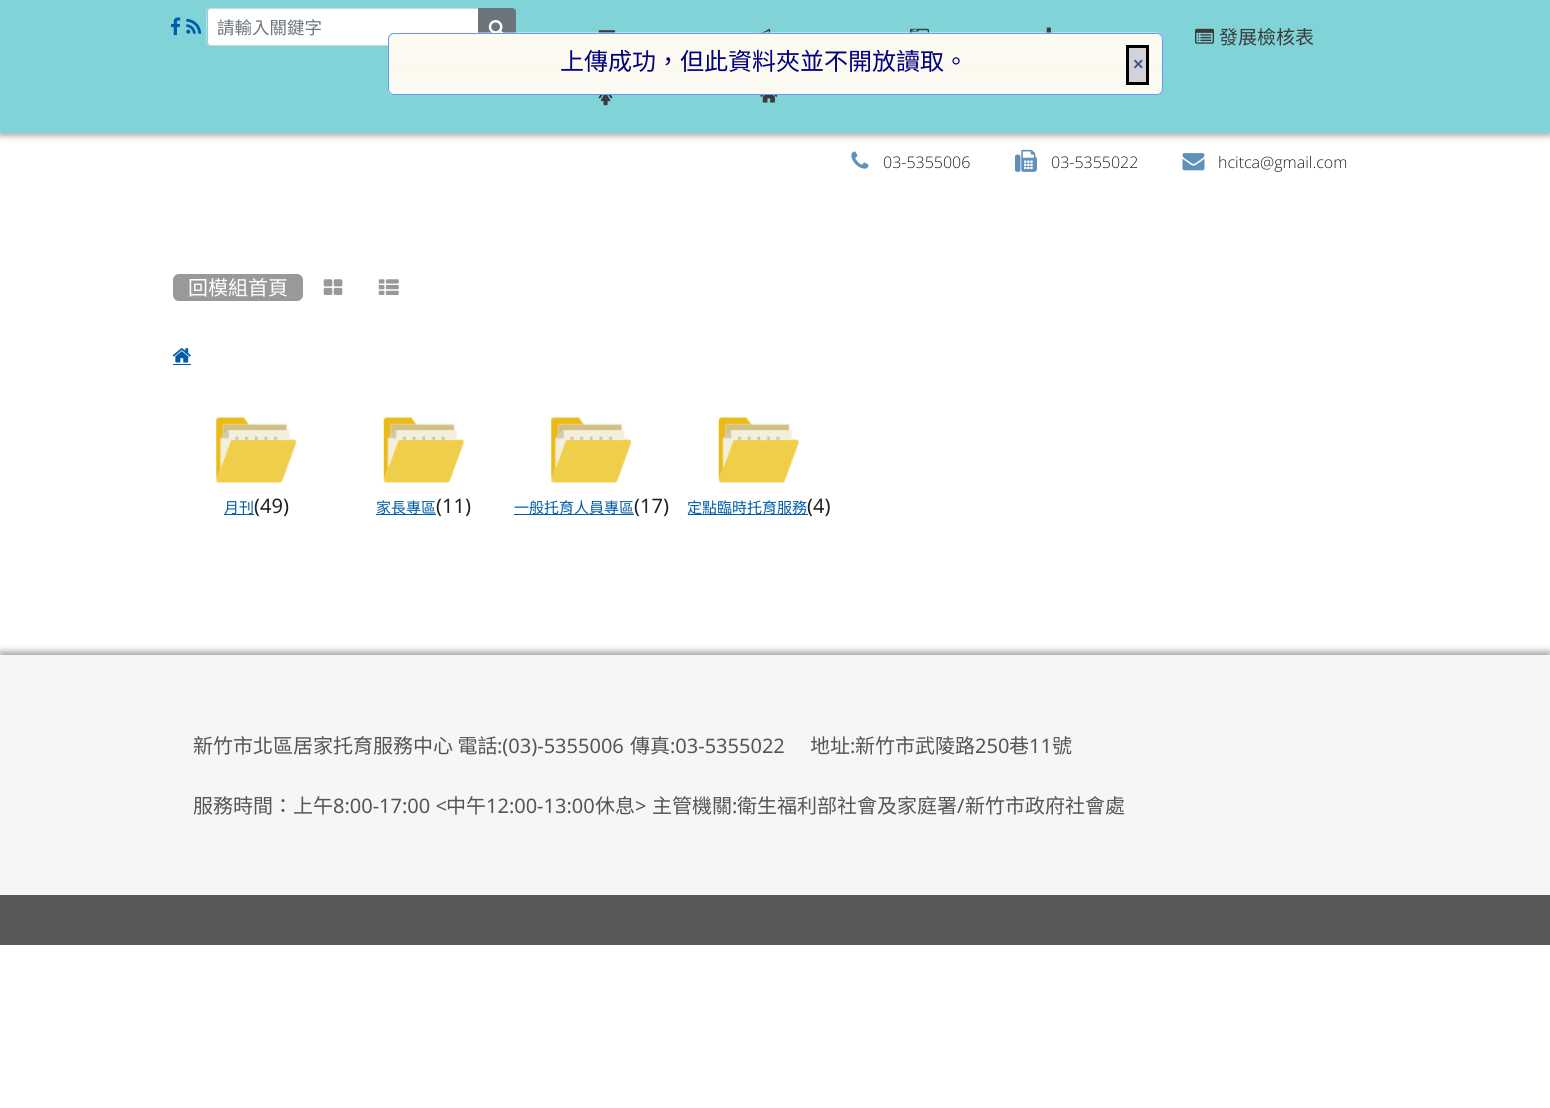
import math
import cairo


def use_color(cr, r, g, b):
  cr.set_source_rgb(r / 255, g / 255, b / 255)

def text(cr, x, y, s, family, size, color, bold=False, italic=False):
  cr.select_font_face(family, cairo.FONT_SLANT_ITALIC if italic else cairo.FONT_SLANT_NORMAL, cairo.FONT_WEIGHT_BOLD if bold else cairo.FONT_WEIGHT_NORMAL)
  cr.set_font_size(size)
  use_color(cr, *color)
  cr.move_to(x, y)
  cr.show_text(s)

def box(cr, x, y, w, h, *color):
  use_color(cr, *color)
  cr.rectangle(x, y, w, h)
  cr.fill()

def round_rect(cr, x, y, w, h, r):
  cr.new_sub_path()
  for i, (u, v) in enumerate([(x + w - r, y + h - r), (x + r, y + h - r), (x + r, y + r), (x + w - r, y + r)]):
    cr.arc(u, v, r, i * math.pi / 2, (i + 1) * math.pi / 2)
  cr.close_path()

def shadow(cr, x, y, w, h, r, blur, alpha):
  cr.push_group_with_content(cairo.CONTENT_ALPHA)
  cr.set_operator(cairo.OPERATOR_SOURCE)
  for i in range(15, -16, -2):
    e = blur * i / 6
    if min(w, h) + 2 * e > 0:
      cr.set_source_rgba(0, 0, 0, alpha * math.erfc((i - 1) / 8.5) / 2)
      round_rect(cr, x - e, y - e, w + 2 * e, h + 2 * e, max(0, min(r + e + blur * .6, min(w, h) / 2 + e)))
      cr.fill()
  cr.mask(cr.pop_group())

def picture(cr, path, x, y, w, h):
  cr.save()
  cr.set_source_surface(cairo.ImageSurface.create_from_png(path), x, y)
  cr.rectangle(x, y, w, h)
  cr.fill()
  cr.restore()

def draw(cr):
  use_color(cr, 255, 255, 255)
  cr.paint()
  use_color(cr, 50, 50, 50)
  shadow(cr, 0, 4, 1550, 132, 0, 3, 0.4)
  box(cr, 0, 0, 1550, 133, 128, 211, 214)
  picture(cr, "img_01.png", 171, 17, 10, 19)
  picture(cr, "img_02.png", 186, 18, 16, 16)
  use_color(cr, 255, 255, 255)
  cr.new_path()
  cr.move_to(210.5, 9)
  cr.line_to(478, 9)
  cr.line_to(478, 45)
  cr.line_to(210.5, 45)
  cr.curve_to(209, 45, 208, 44, 208, 42.5)
  cr.line_to(208, 11.5)
  cr.curve_to(208, 10, 209, 9, 210.5, 9)
  cr.close_path()
  cr.fill()
  cr.new_path()
  cr.move_to(210, 8.5)
  cr.line_to(478.5, 8.5)
  cr.line_to(478.5, 45.5)
  cr.line_to(210, 45.5)
  cr.curve_to(208, 45.5, 206.5, 44, 206.5, 42)
  cr.line_to(206.5, 12)
  cr.curve_to(206.5, 10, 208, 8.5, 210, 8.5)
  cr.close_path()
  use_color(cr, 206, 212, 218)
  cr.set_line_width(1)
  cr.stroke()
  use_color(cr, 108, 117, 125)
  cr.new_path()
  cr.move_to(478.5, 8.5)
  cr.line_to(512, 8.5)
  cr.curve_to(514, 8.5, 515.5, 10, 515.5, 12)
  cr.line_to(515.5, 42)
  cr.curve_to(515.5, 44, 514, 45.5, 512, 45.5)
  cr.line_to(478.5, 45.5)
  cr.close_path()
  cr.fill_preserve()
  cr.stroke()
  picture(cr, "img_03.png", 488, 20, 16, 13)
  picture(cr, "img_04.png", 598, 30, 18, 3)
  picture(cr, "img_05.png", 754, 28, 17, 5)
  picture(cr, "img_06.png", 910, 28, 19, 5)
  picture(cr, "img_07.png", 1044, 27, 10, 6)
  picture(cr, "img_08.png", 1195, 28, 19, 16)
  picture(cr, "img_09.png", 598, 95, 15, 11)
  picture(cr, "img_10.png", 760, 95, 18, 8)
  picture(cr, "img_11.png", 388, 32, 775, 63)
  round_rect(cr, 388.5, 33.5, 774, 61, 5.5)
  use_color(cr, 102, 153, 255)
  cr.stroke()
  use_color(cr, 211, 210, 214)
  cr.rectangle(1127.5, 46.5, 20, 37)
  cr.fill_preserve()
  use_color(cr, 0, 0, 0)
  cr.set_line_width(3)
  cr.stroke()
  picture(cr, "img_12.png", 851, 151, 18, 18)
  picture(cr, "img_13.png", 1015, 149, 22, 23)
  picture(cr, "img_14.png", 1182, 153, 23, 18)
  use_color(cr, 153, 153, 153)
  round_rect(cr, 173, 274, 130, 27, 6)
  cr.fill()
  picture(cr, "img_15.png", 323, 279, 20, 16)
  picture(cr, "img_16.png", 378, 279, 21, 16)
  picture(cr, "img_17.png", 172, 348, 19, 15)
  box(cr, 173, 364, 18, 1, 0, 92, 168)
  picture(cr, "img_18.png", 216, 417, 81, 66)
  box(cr, 224, 514, 30, 1, 0, 92, 168)
  picture(cr, "img_19.png", 383, 417, 81, 66)
  box(cr, 376, 514, 60, 1, 0, 92, 168)
  picture(cr, "img_18.png", 551, 417, 81, 66)
  box(cr, 514, 514, 120, 1, 0, 92, 168)
  picture(cr, "img_20.png", 718, 417, 81, 66)
  box(cr, 688, 514, 120, 1, 0, 92, 168)
  use_color(cr, 50, 50, 50)
  shadow(cr, 0, 651, 1550, 240, 0, 3, 0.4)
  box(cr, 0, 655, 1550, 240, 246, 246, 246)
  box(cr, 0, 895, 1550, 50, 88, 88, 88)
  text(cr, 217, 34, "請輸入關鍵字", "Noto Sans CJK TC", 17.5, (108, 117, 125))
  text(cr, 1219, 44, "發展檢核表", "Noto Sans CJK TC", 19, (59, 59, 59))
  text(cr, 560, 70, "上傳成功，但此資料夾並不開放讀取。", "Noto Sans CJK TC", 24, (0, 0, 128))
  text(cr, 1133, 70, "×", "Liberation Sans", 18, (64, 90, 128), bold=True)
  text(cr, 883, 168, "03-5355006", "Open Sans Light", 16, (32, 32, 32))
  text(cr, 1051, 168, "03-5355022", "Open Sans Light", 16, (32, 32, 32))
  text(cr, 1218, 168, "hcitca@gmail.com", "Open Sans Light", 16, (32, 32, 32))
  text(cr, 188, 295, "回模組首頁", "Noto Sans CJK TC", 20, (255, 255, 255))
  text(cr, 224, 513, "月刊", "Noto Sans CJK TC", 15, (0, 92, 168))
  text(cr, 254, 513, "(49)", "Noto Sans", 20, (32, 32, 32))
  text(cr, 376, 513, "家長專區", "Noto Sans CJK TC", 15, (0, 92, 168))
  text(cr, 436, 513, "(11)", "Noto Sans", 20, (32, 32, 32))
  text(cr, 514, 513, "一般托育人員專區", "Noto Sans CJK TC", 15, (0, 92, 168))
  text(cr, 634, 513, "(17)", "Noto Sans", 20, (32, 32, 32))
  text(cr, 687, 513, "定點臨時托育服務", "Noto Sans CJK TC", 15, (0, 92, 168))
  text(cr, 807, 513, "(4)", "Noto Sans", 20, (32, 32, 32))
  text(cr, 193, 753, "新竹市北區居家托育服務中心 電話", "Noto Sans CJK TC", 20, (85, 85, 85))
  text(cr, 497, 753, ":(03)-5355006", "Noto Sans", 20, (85, 85, 85))
  text(cr, 630, 753, "傳真", "Noto Sans CJK TC", 20, (85, 85, 85))
  text(cr, 670, 753, ":03-5355022", "Noto Sans", 20, (85, 85, 85))
  text(cr, 810, 753, "地址", "Noto Sans CJK TC", 20, (85, 85, 85))
  text(cr, 850, 753, ":", "Noto Sans", 20, (85, 85, 85))
  text(cr, 855, 753, "新竹市武陵路", "Noto Sans CJK TC", 20, (85, 85, 85))
  text(cr, 975, 753, "250", "Noto Sans", 20, (85, 85, 85))
  text(cr, 1009, 753, "巷", "Noto Sans CJK TC", 20, (85, 85, 85))
  text(cr, 1029, 753, "11", "Noto Sans", 20, (85, 85, 85))
  text(cr, 1052, 753, "號", "Noto Sans CJK TC", 20, (85, 85, 85))
  text(cr, 193, 813, "服務時間：上午", "Noto Sans CJK TC", 20, (85, 85, 85))
  text(cr, 333, 813, "8:00-17:00 <", "Noto Sans", 20, (85, 85, 85))
  text(cr, 446, 813, "中午", "Noto Sans CJK TC", 20, (85, 85, 85))
  text(cr, 486, 813, "12:00-13:00", "Noto Sans", 20, (85, 85, 85))
  text(cr, 595, 813, "休息", "Noto Sans CJK TC", 20, (85, 85, 85))
  text(cr, 635, 813, ">", "Noto Sans", 20, (85, 85, 85))
  text(cr, 652, 813, "主管機關", "Noto Sans CJK TC", 20, (85, 85, 85))
  text(cr, 732, 813, ":", "Noto Sans", 20, (85, 85, 85))
  text(cr, 737, 813, "衛生福利部社會及家庭署", "Noto Sans CJK TC", 20, (85, 85, 85))
  text(cr, 957, 813, "/", "Noto Sans", 20, (85, 85, 85))
  text(cr, 965, 813, "新竹市政府社會處", "Noto Sans CJK TC", 20, (85, 85, 85))


surface = cairo.ImageSurface(cairo.FORMAT_RGB24, 1550, 1108)
cr = cairo.Context(surface)
options = cairo.FontOptions()
options.set_hint_metrics(cairo.HINT_METRICS_OFF)
options.set_hint_style(cairo.HINT_STYLE_NONE)
cr.set_font_options(options)
cr.set_miter_limit(4)
draw(cr)
surface.write_to_png("out.png")
